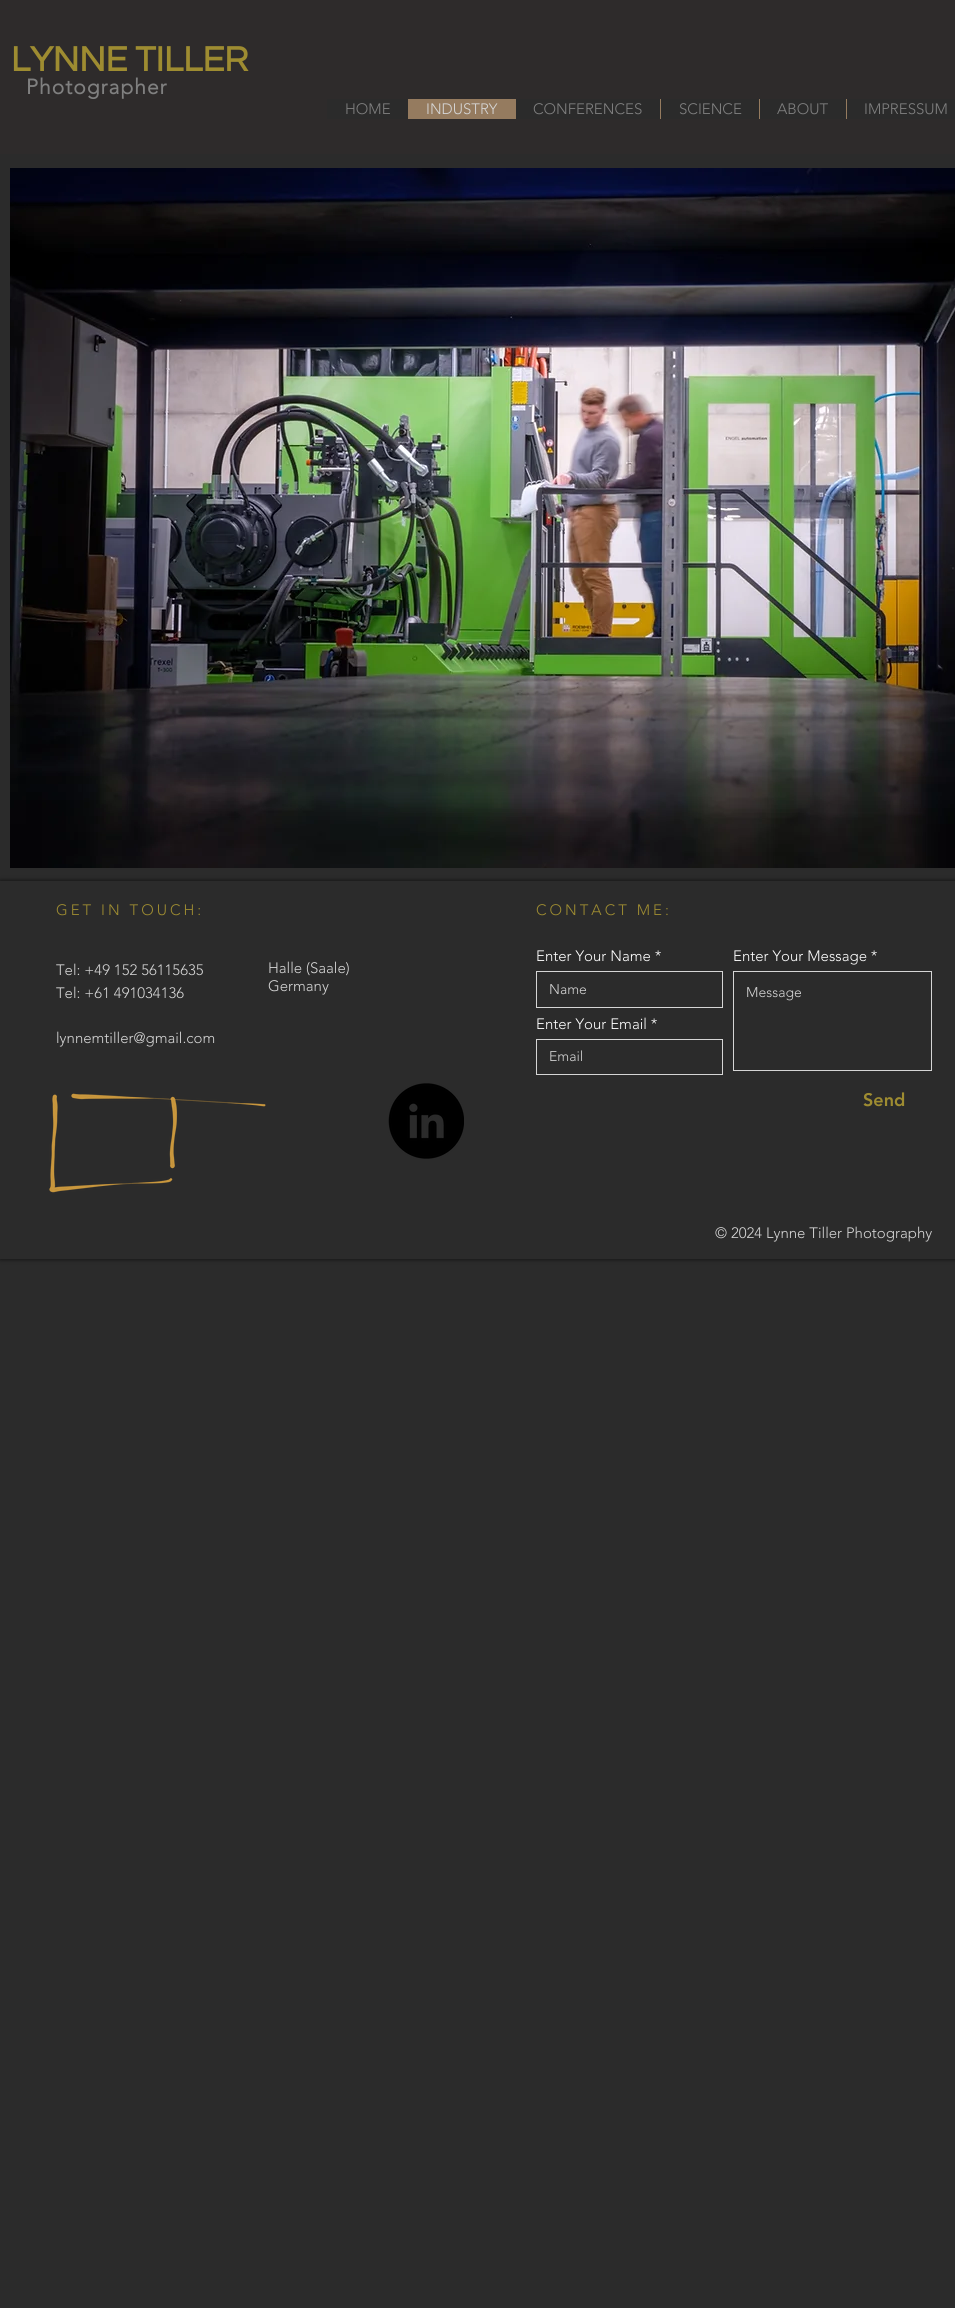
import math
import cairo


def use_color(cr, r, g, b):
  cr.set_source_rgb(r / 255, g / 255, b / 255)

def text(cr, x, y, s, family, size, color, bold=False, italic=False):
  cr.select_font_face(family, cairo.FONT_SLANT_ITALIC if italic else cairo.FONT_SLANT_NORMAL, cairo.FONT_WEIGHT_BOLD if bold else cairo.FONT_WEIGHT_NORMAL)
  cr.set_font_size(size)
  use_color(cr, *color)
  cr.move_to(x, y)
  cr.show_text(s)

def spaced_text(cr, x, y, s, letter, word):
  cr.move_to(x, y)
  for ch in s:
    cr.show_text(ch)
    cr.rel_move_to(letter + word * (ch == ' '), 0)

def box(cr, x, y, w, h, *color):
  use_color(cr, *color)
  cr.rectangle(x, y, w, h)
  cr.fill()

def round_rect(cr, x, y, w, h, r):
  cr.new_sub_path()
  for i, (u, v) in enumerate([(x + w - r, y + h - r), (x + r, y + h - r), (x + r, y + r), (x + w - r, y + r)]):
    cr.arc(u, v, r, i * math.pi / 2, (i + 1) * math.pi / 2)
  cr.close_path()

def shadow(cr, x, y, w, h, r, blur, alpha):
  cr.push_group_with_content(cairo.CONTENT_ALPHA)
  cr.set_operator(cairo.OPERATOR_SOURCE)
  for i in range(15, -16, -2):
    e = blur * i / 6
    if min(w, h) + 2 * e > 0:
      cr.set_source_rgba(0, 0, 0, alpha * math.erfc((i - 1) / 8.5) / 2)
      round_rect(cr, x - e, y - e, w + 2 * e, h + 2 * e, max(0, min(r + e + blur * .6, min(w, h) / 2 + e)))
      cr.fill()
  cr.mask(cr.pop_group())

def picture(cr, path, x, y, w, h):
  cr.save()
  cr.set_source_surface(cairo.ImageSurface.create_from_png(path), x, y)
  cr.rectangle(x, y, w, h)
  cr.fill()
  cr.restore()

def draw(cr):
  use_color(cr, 43, 43, 43)
  cr.paint()
  box(cr, 0, 0, 955, 154, 46, 43, 43)
  box(cr, 327, 99, 628, 20, 43, 43, 43)
  box(cr, 408, 99, 108, 20, 149, 123, 95)
  box(cr, 660, 99, 1, 20, 149, 123, 95)
  box(cr, 759, 99, 1, 20, 149, 123, 95)
  box(cr, 846, 99, 1, 20, 149, 123, 95)
  picture(cr, "img_01.png", 10, 168, 945, 700)
  cr.save()
  cr.set_fill_rule(cairo.FILL_RULE_EVEN_ODD)
  cr.new_path()
  cr.move_to(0, 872)
  cr.line_to(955, 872)
  cr.line_to(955, 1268)
  cr.line_to(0, 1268)
  cr.close_path()
  cr.move_to(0, 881)
  cr.line_to(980, 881)
  cr.line_to(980, 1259)
  cr.line_to(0, 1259)
  cr.close_path()
  cr.clip()
  use_color(cr, 0, 0, 0)
  shadow(cr, 0, 881, 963, 378, 0, 2.5, 0.7)
  cr.restore()
  cr.rectangle(536.5, 971.5, 186, 36)
  use_color(cr, 213, 213, 213)
  cr.set_line_width(1)
  cr.stroke()
  cr.rectangle(733.5, 971.5, 198, 99)
  cr.stroke()
  cr.rectangle(536.5, 1039.5, 186, 35)
  cr.stroke()
  picture(cr, "img_02.png", 49, 1093, 217, 100)
  picture(cr, "img_03.png", 388, 1083, 76, 76)
  text(cr, 11, 71, "LYNNE TILLER", "Questrial", 36, (158, 140, 49), bold=True)
  cr.select_font_face("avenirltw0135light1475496", cairo.FONT_SLANT_NORMAL, cairo.FONT_WEIGHT_BOLD)
  cr.set_font_size(21)
  use_color(cr, 128, 128, 128)
  spaced_text(cr, 26, 94, "Photographer", 1, 0)
  text(cr, 345, 114, "HOME", "avenirltw0135light1475496 Light", 15, (128, 128, 128))
  text(cr, 426, 114, "INDUSTRY", "avenirltw0135light1475496 Light", 15, (213, 213, 213))
  text(cr, 533, 114, "CONFERENCES", "avenirltw0135light1475496 Light", 15, (128, 128, 128))
  text(cr, 679, 114, "SCIENCE", "avenirltw0135light1475496 Light", 15, (128, 128, 128))
  text(cr, 777, 114, "ABOUT", "avenirltw0135light1475496 Light", 15, (128, 128, 128))
  text(cr, 864, 114, "IMPRESSUM", "avenirltw0135light1475496 Light", 15, (128, 128, 128))
  use_color(cr, 158, 140, 49)
  spaced_text(cr, 56, 915, "GET IN TOUCH:", 3, 0)
  spaced_text(cr, 536, 915, "CONTACT ME:", 3, 0)
  text(cr, 56, 975, "Tel: +49 152 56115635", "avenirltw0135light1475496 Light", 15, (213, 213, 213))
  text(cr, 56, 998, "Tel: +61 491034136", "avenirltw0135light1475496 Light", 15, (213, 213, 213))
  text(cr, 56, 1043, "lynnemtiller@gmail.com", "avenirltw0135light1475496 Light", 15, (213, 213, 213))
  text(cr, 268, 973, "Halle (Saale)", "avenirltw0135light1475496 Light", 15, (213, 213, 213))
  text(cr, 268, 991, "Germany", "avenirltw0135light1475496 Light", 15, (213, 213, 213))
  text(cr, 536, 961, "Enter Your Name *", "avenirltw0135light1475496 Light", 15, (255, 255, 255))
  text(cr, 549, 994, "Name", "avenirltw0135light1475496 Light", 14, (213, 213, 213))
  text(cr, 733, 961, "Enter Your Message *", "avenirltw0135light1475496 Light", 15, (255, 255, 255))
  text(cr, 746, 997, "Message", "avenirltw0135light1475496 Light", 14, (213, 213, 213))
  text(cr, 536, 1029, "Enter Your Email *", "avenirltw0135light1475496 Light", 15, (255, 255, 255))
  text(cr, 549, 1061, "Email", "avenirltw0135light1475496 Light", 14, (213, 213, 213))
  text(cr, 863, 1106, "Send", "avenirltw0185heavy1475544 Black", 18, (158, 140, 49))
  text(cr, 715, 1238, "© 2024 Lynne Tiller Photography", "avenirltw0135light1475496 Light", 15, (213, 213, 213))


surface = cairo.ImageSurface(cairo.FORMAT_RGB24, 955, 2308)
cr = cairo.Context(surface)
options = cairo.FontOptions()
options.set_hint_metrics(cairo.HINT_METRICS_OFF)
options.set_hint_style(cairo.HINT_STYLE_NONE)
cr.set_font_options(options)
cr.set_miter_limit(4)
draw(cr)
surface.write_to_png("out.png")
